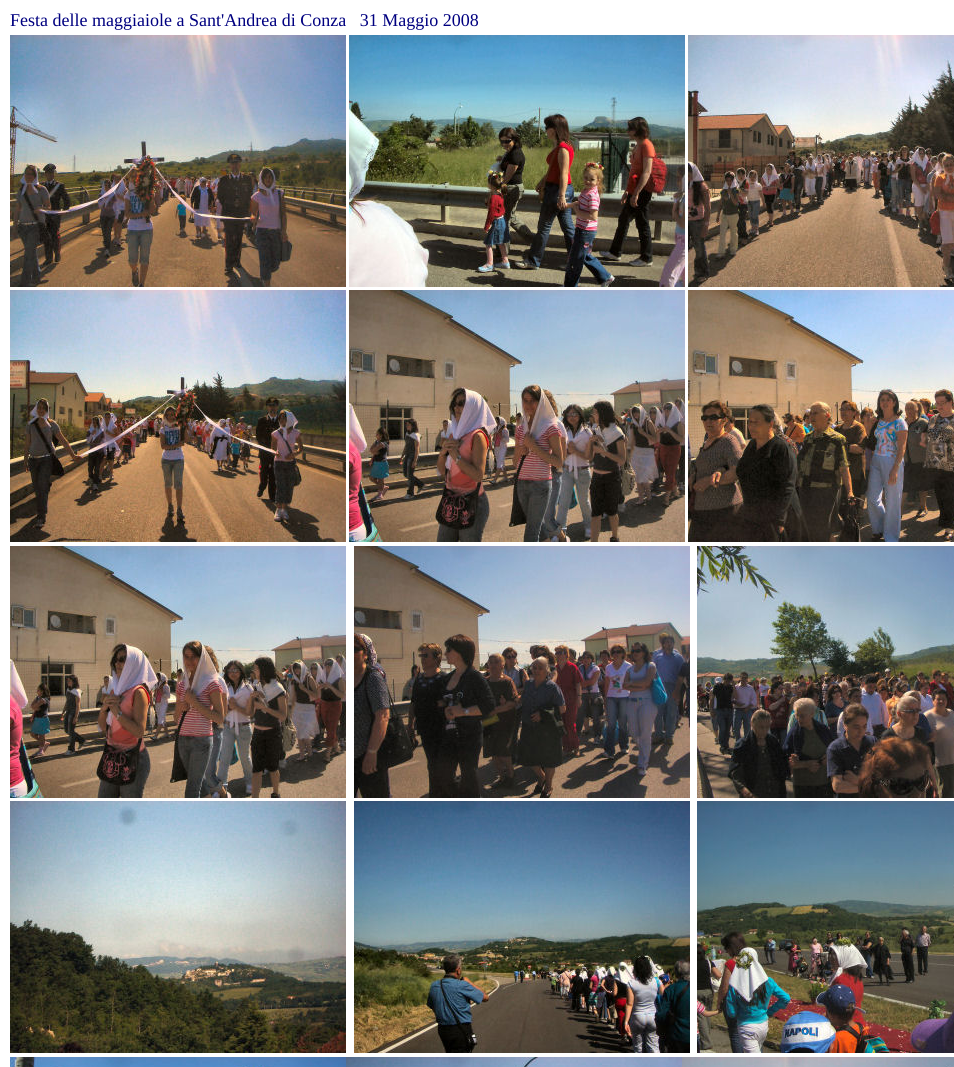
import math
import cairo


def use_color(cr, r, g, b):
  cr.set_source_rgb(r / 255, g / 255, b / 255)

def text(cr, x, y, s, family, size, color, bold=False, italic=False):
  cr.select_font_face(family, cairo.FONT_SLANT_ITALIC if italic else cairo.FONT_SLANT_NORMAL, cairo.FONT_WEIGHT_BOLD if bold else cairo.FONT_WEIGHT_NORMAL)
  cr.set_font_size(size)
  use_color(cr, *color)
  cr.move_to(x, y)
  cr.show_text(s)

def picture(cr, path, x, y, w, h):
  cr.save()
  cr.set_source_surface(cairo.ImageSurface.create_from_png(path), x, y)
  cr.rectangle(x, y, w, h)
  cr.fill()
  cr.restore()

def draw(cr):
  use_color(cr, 255, 255, 255)
  cr.paint()
  picture(cr, "img_01.png", 10, 35, 336, 252)
  picture(cr, "img_02.png", 349, 35, 336, 252)
  picture(cr, "img_03.png", 688, 35, 266, 252)
  picture(cr, "img_04.png", 10, 290, 336, 252)
  picture(cr, "img_05.png", 349, 290, 336, 252)
  picture(cr, "img_06.png", 688, 290, 266, 252)
  picture(cr, "img_05.png", 10, 546, 336, 252)
  picture(cr, "img_07.png", 354, 546, 336, 252)
  picture(cr, "img_08.png", 697, 546, 257, 252)
  picture(cr, "img_09.png", 10, 801, 336, 252)
  picture(cr, "img_10.png", 354, 801, 336, 252)
  picture(cr, "img_11.png", 697, 801, 257, 252)
  picture(cr, "img_12.png", 10, 1057, 336, 10)
  picture(cr, "img_13.png", 346, 1057, 336, 10)
  picture(cr, "img_14.png", 682, 1057, 272, 10)
  text(cr, 10, 26, "Festa delle maggiaiole a Sant'Andrea di Conza   31 Maggio 2008", "Liberation Serif", 18, (0, 0, 128))


surface = cairo.ImageSurface(cairo.FORMAT_RGB24, 954, 1067)
cr = cairo.Context(surface)
options = cairo.FontOptions()
options.set_hint_metrics(cairo.HINT_METRICS_OFF)
options.set_hint_style(cairo.HINT_STYLE_NONE)
cr.set_font_options(options)
cr.set_miter_limit(4)
draw(cr)
surface.write_to_png("out.png")
